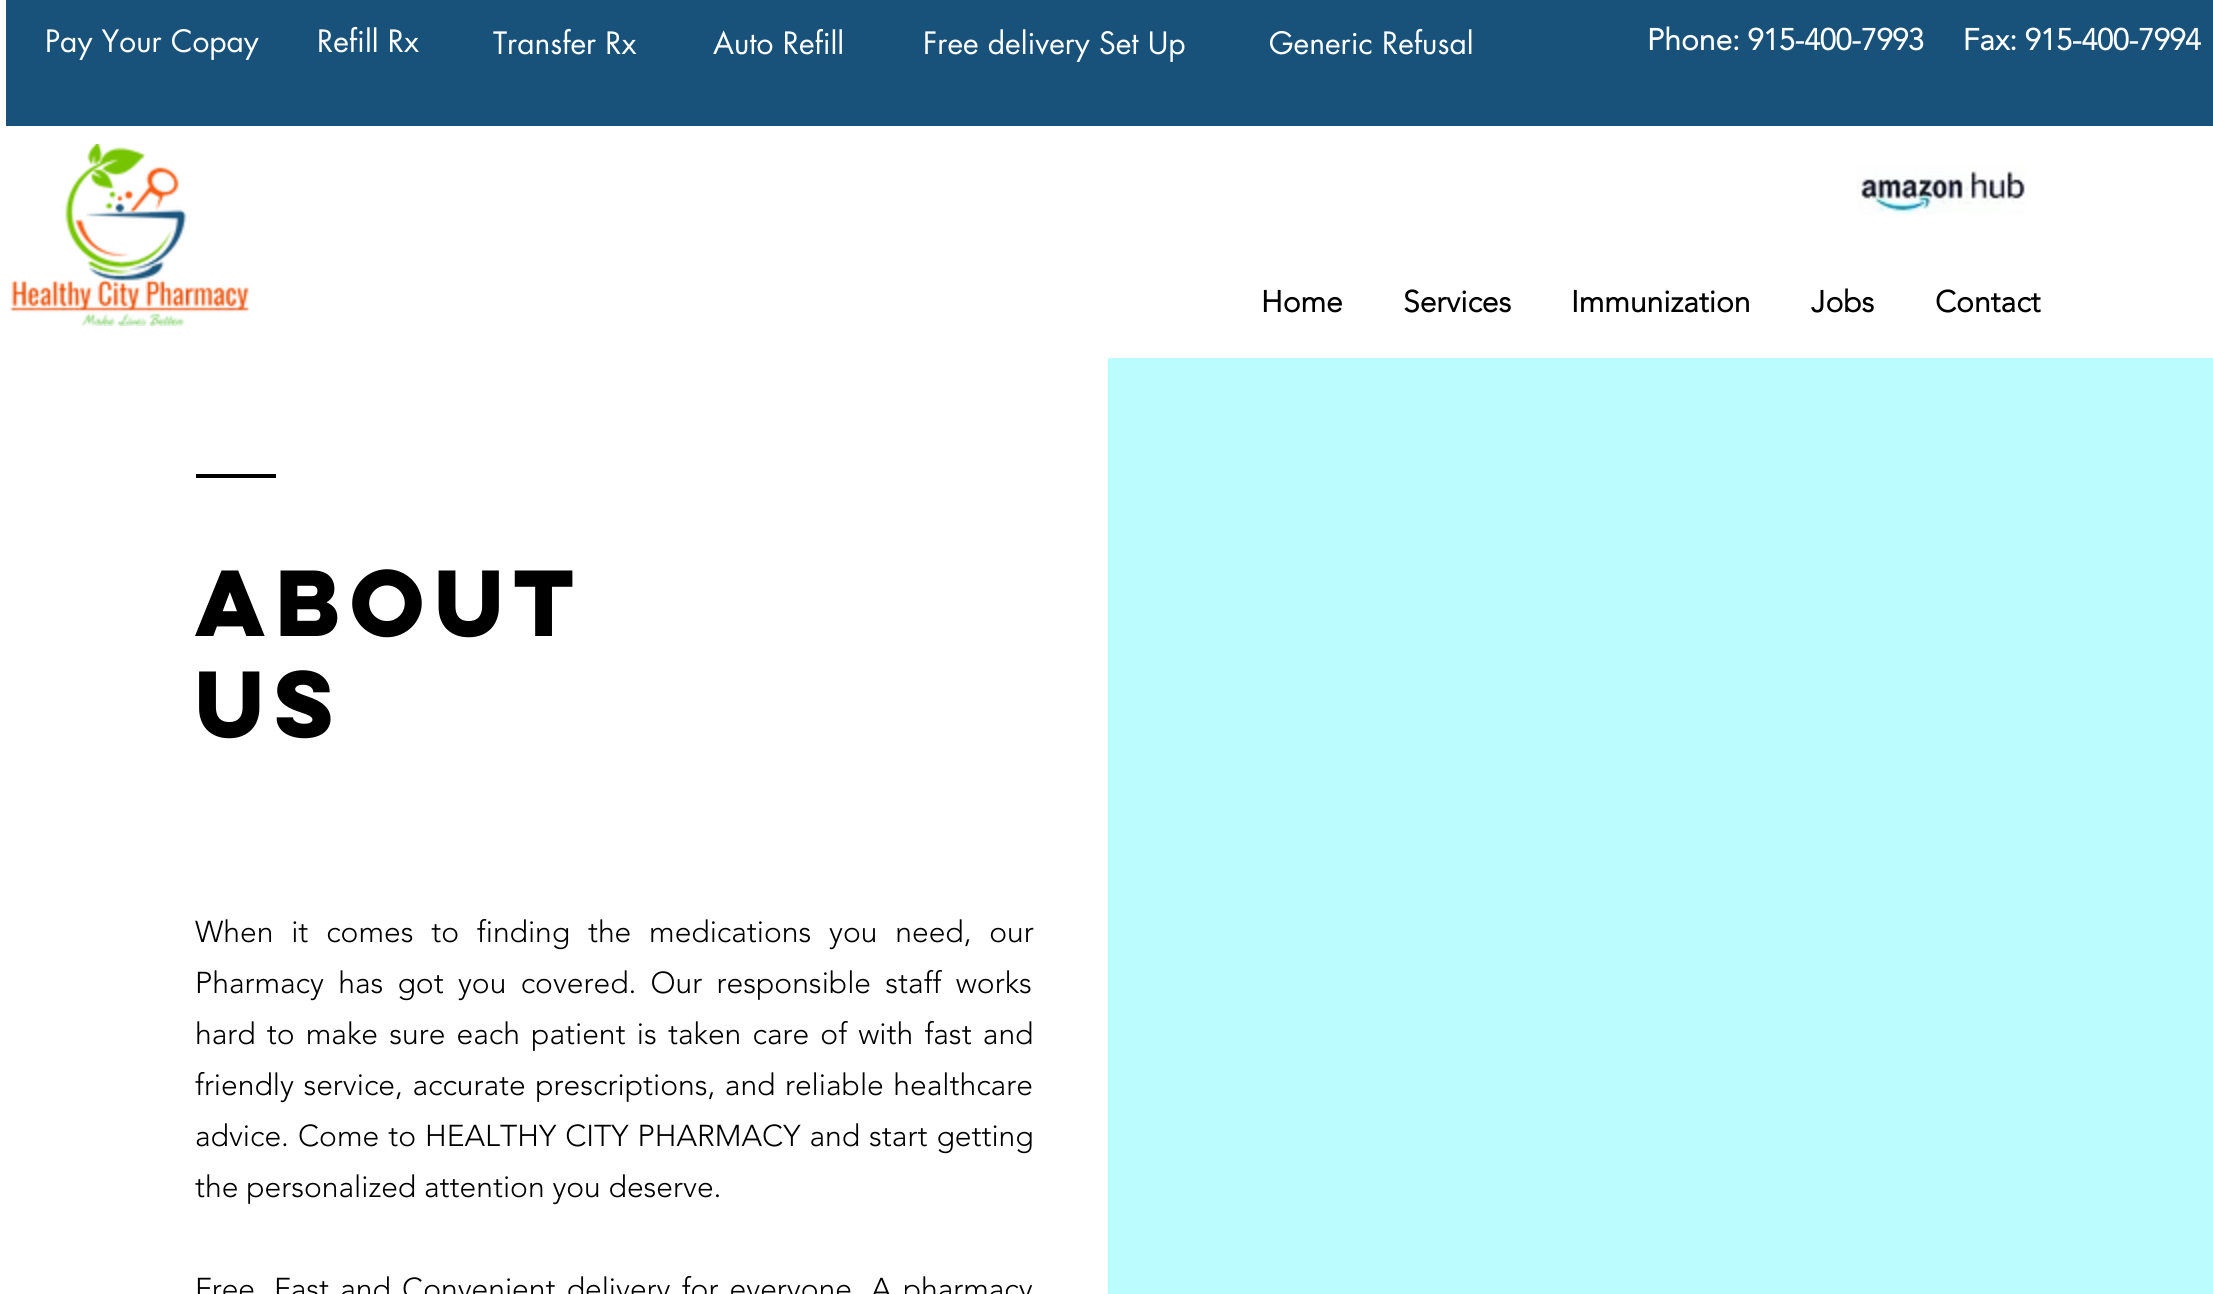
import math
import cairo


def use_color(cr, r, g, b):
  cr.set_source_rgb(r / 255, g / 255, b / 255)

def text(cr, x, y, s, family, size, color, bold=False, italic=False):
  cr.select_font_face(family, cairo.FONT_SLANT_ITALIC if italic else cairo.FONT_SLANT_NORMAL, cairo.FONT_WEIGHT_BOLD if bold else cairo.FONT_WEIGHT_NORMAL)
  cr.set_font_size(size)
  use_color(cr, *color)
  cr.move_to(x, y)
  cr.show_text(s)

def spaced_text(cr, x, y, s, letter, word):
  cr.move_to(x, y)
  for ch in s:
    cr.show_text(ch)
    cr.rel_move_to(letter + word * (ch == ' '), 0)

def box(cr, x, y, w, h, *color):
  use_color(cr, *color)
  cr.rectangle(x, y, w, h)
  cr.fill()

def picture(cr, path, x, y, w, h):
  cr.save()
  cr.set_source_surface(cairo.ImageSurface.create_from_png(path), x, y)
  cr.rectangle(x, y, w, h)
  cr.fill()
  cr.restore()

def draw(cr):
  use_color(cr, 255, 255, 255)
  cr.paint()
  box(cr, 6, 0, 2207, 126, 24, 82, 122)
  picture(cr, "img_01.png", 9, 144, 241, 182)
  picture(cr, "img_02.png", 1857, 164, 168, 51)
  box(cr, 196, 474, 80, 4, 0, 0, 0)
  box(cr, 1108, 358, 1105, 936, 186, 252, 255)
  text(cr, 45, 52, "Pay Your Copay", "futura", 30, (255, 255, 255))
  text(cr, 317, 52, "Refill Rx", "futura", 30, (255, 255, 255))
  text(cr, 493, 54, "Transfer Rx", "futura", 30, (255, 255, 255))
  text(cr, 713, 54, "Auto Refill", "futura", 30, (255, 255, 255))
  text(cr, 923, 54, "Free delivery Set Up", "futura", 30, (255, 255, 255))
  text(cr, 1269, 54, "Generic Refusal", "futura", 30, (255, 255, 255))
  text(cr, 1647, 50, "Phone: 915-400-7993     Fax: 915-400-7994", "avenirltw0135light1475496", 30, (255, 255, 255), bold=True)
  text(cr, 1261, 312, "Home", "avenirltw0135light1475496", 30, (0, 0, 0), bold=True)
  text(cr, 1403, 312, "Services", "avenirltw0135light1475496", 30, (0, 0, 0), bold=True)
  text(cr, 1571, 312, "Immunization", "avenirltw0135light1475496", 30, (0, 0, 0), bold=True)
  text(cr, 1811, 312, "Jobs", "avenirltw0135light1475496", 30, (0, 0, 0), bold=True)
  text(cr, 1935, 312, "Contact", "avenirltw0135light1475496", 30, (0, 0, 0), bold=True)
  cr.select_font_face("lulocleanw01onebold", cairo.FONT_SLANT_NORMAL, cairo.FONT_WEIGHT_BOLD)
  cr.set_font_size(84)
  spaced_text(cr, 195, 636, "ABOUT", -8.5, 0)
  spaced_text(cr, 195, 737, "US", -8.5, 0)
  cr.select_font_face("avenirltw0135light1475496 Light")
  cr.set_font_size(30)
  spaced_text(cr, 195, 942, "When it comes to finding the medications you need, our", 0, 10)
  spaced_text(cr, 195, 993, "Pharmacy has got you covered. Our responsible staff works", 0, 6.5)
  spaced_text(cr, 195, 1044, "hard to make sure each patient is taken care of with fast and", 0, 3.4)
  spaced_text(cr, 195, 1095, "friendly service, accurate prescriptions, and reliable healthcare", 0, 1.75)
  spaced_text(cr, 195, 1146, "advice. Come to HEALTHY CITY PHARMACY and start getting", 0, 1.25)
  text(cr, 195, 1197, "the personalized attention you deserve.", "avenirltw0135light1475496 Light", 30, (0, 0, 0))
  spaced_text(cr, 195, 1299, "Free, Fast and Convenient delivery for everyone. A pharmacy", 0, 3.4)


surface = cairo.ImageSurface(cairo.FORMAT_RGB24, 2213, 1294)
cr = cairo.Context(surface)
options = cairo.FontOptions()
options.set_hint_metrics(cairo.HINT_METRICS_OFF)
options.set_hint_style(cairo.HINT_STYLE_NONE)
cr.set_font_options(options)
cr.set_miter_limit(4)
draw(cr)
surface.write_to_png("out.png")
